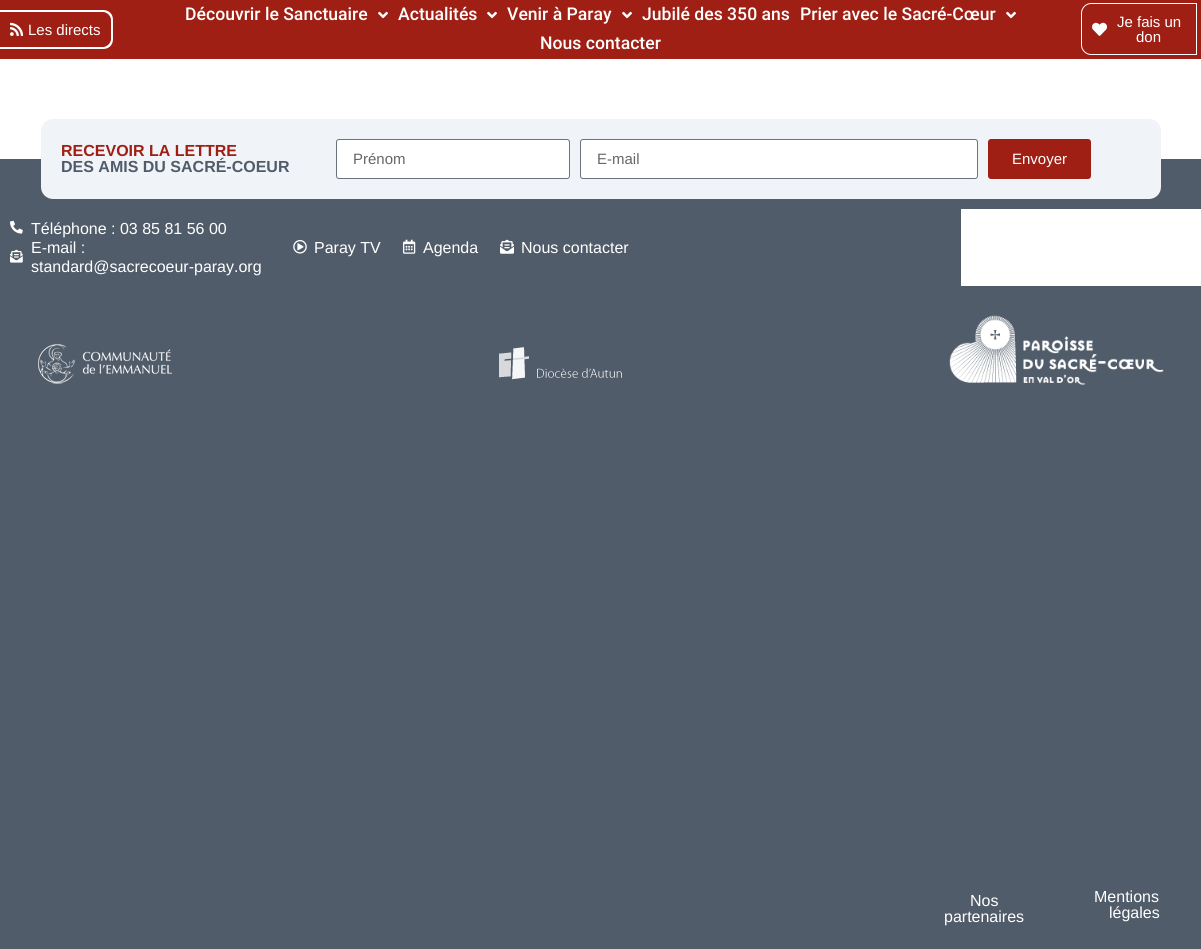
import math
import cairo


def use_color(cr, r, g, b):
  cr.set_source_rgb(r / 255, g / 255, b / 255)

def text(cr, x, y, s, family, size, color, bold=False, italic=False):
  cr.select_font_face(family, cairo.FONT_SLANT_ITALIC if italic else cairo.FONT_SLANT_NORMAL, cairo.FONT_WEIGHT_BOLD if bold else cairo.FONT_WEIGHT_NORMAL)
  cr.set_font_size(size)
  use_color(cr, *color)
  cr.move_to(x, y)
  cr.show_text(s)

def box(cr, x, y, w, h, *color):
  use_color(cr, *color)
  cr.rectangle(x, y, w, h)
  cr.fill()

def round_rect(cr, x, y, w, h, r):
  cr.new_sub_path()
  for i, (u, v) in enumerate([(x + w - r, y + h - r), (x + r, y + h - r), (x + r, y + r), (x + w - r, y + r)]):
    cr.arc(u, v, r, i * math.pi / 2, (i + 1) * math.pi / 2)
  cr.close_path()

def picture(cr, path, x, y, w, h):
  cr.save()
  cr.set_source_surface(cairo.ImageSurface.create_from_png(path), x, y)
  cr.rectangle(x, y, w, h)
  cr.fill()
  cr.restore()

def draw(cr):
  use_color(cr, 255, 255, 255)
  cr.paint()
  box(cr, 0, 0, 1201, 59, 159, 31, 20)
  use_color(cr, 255, 255, 255)
  cr.set_fill_rule(cairo.FILL_RULE_EVEN_ODD)
  cr.new_path()
  cr.move_to(0, 10)
  cr.line_to(103, 10)
  cr.curve_to(109, 10, 113, 14, 113, 20)
  cr.line_to(113, 39)
  cr.curve_to(113, 45, 109, 49, 103, 49)
  cr.line_to(0, 49)
  cr.close_path()
  cr.move_to(0, 12)
  cr.line_to(103, 12)
  cr.curve_to(107, 12, 111, 16, 111, 20)
  cr.line_to(111, 39)
  cr.curve_to(111, 43, 107, 47, 103, 47)
  cr.line_to(0, 47)
  cr.close_path()
  cr.fill()
  picture(cr, "img_01.png", 10, 22, 14, 14)
  picture(cr, "img_02.png", 378, 11, 10, 8)
  picture(cr, "img_02.png", 487, 11, 10, 8)
  picture(cr, "img_02.png", 622, 11, 10, 8)
  picture(cr, "img_02.png", 1006, 11, 10, 8)
  cr.new_path()
  cr.move_to(1091, 3.5)
  cr.line_to(1196.5, 3.5)
  cr.line_to(1196.5, 54.5)
  cr.line_to(1091, 54.5)
  cr.curve_to(1086, 54.5, 1081.5, 50, 1081.5, 45)
  cr.line_to(1081.5, 13)
  cr.curve_to(1081.5, 8, 1086, 3.5, 1091, 3.5)
  cr.close_path()
  cr.set_line_width(1)
  cr.stroke()
  picture(cr, "img_03.png", 1092, 22, 15, 14)
  box(cr, 0, 159, 1201, 50, 81, 92, 106)
  use_color(cr, 240, 243, 247)
  round_rect(cr, 41, 119, 1120, 80, 12)
  cr.fill()
  use_color(cr, 255, 255, 255)
  round_rect(cr, 336.5, 139.5, 233, 39, 2.5)
  cr.fill_preserve()
  use_color(cr, 105, 114, 125)
  cr.stroke()
  use_color(cr, 255, 255, 255)
  round_rect(cr, 580.5, 139.5, 397, 39, 2.5)
  cr.fill_preserve()
  use_color(cr, 105, 114, 125)
  cr.stroke()
  use_color(cr, 159, 31, 20)
  round_rect(cr, 988, 139, 103, 40, 3)
  cr.fill()
  box(cr, 0, 209, 961, 77, 81, 92, 106)
  picture(cr, "img_04.png", 10, 220, 13, 14)
  picture(cr, "img_05.png", 10, 249, 13, 14)
  picture(cr, "img_06.png", 293, 240, 14, 14)
  picture(cr, "img_07.png", 403, 239, 13, 15)
  picture(cr, "img_08.png", 500, 239, 14, 15)
  box(cr, 0, 286, 1201, 663, 81, 92, 106)
  picture(cr, "img_09.png", 38, 344, 134, 40)
  picture(cr, "img_10.png", 498, 347, 124, 33)
  picture(cr, "img_11.png", 949, 315, 215, 71)
  text(cr, 28, 35, "Les directs", "Liberation Sans", 15, (255, 255, 255))
  text(cr, 185, 20, "Découvrir le Sanctuaire", "Roboto Medium", 17.6, (255, 255, 255))
  text(cr, 398, 20, "Actualités", "Roboto Medium", 17.6, (255, 255, 255))
  text(cr, 507, 20, "Venir à Paray", "Roboto Medium", 17.6, (255, 255, 255))
  text(cr, 642, 20, "Jubilé des 350 ans", "Roboto Medium", 17.6, (255, 255, 255))
  text(cr, 800, 20, "Prier avec le Sacré-Cœur", "Roboto Medium", 17.6, (255, 255, 255))
  text(cr, 540, 49, "Nous contacter", "Roboto Medium", 17.6, (255, 255, 255))
  text(cr, 1117, 27, "Je fais un", "Liberation Sans", 15, (255, 255, 255))
  text(cr, 1136, 42, "don", "Liberation Sans", 15, (255, 255, 255))
  text(cr, 61, 156, "RECEVOIR LA LETTRE", "Liberation Sans", 16, (159, 31, 20), bold=True)
  text(cr, 61, 172, "DES AMIS DU SACRÉ-COEUR", "Liberation Sans", 16, (81, 92, 106), bold=True)
  text(cr, 353, 164, "Prénom", "Liberation Sans", 15, (102, 102, 102))
  text(cr, 597, 164, "E-mail", "Liberation Sans", 15, (102, 102, 102))
  text(cr, 1012, 164, "Envoyer", "Liberation Sans", 15, (255, 255, 255))
  text(cr, 31, 234, "Téléphone : 03 85 81 56 00", "Liberation Sans", 16, (255, 255, 255))
  text(cr, 31, 253, "E-mail :", "Liberation Sans", 16, (255, 255, 255))
  text(cr, 31, 272, "standard@sacrecoeur-paray.org", "Liberation Sans", 16, (255, 255, 255))
  text(cr, 314, 253, "Paray TV", "Liberation Sans", 16, (255, 255, 255))
  text(cr, 423, 253, "Agenda", "Liberation Sans", 16, (255, 255, 255))
  text(cr, 521, 253, "Nous contacter", "Liberation Sans", 16, (255, 255, 255))
  text(cr, 970, 906, "Nos", "Liberation Sans", 16, (255, 255, 255))
  text(cr, 944, 922, "partenaires", "Liberation Sans", 16, (255, 255, 255))
  text(cr, 1094, 902, "Mentions", "Liberation Sans", 16, (255, 255, 255))
  text(cr, 1109, 918, "légales", "Liberation Sans", 16, (255, 255, 255))


surface = cairo.ImageSurface(cairo.FORMAT_RGB24, 1201, 949)
cr = cairo.Context(surface)
options = cairo.FontOptions()
options.set_hint_metrics(cairo.HINT_METRICS_OFF)
options.set_hint_style(cairo.HINT_STYLE_NONE)
cr.set_font_options(options)
cr.set_miter_limit(4)
draw(cr)
surface.write_to_png("out.png")
